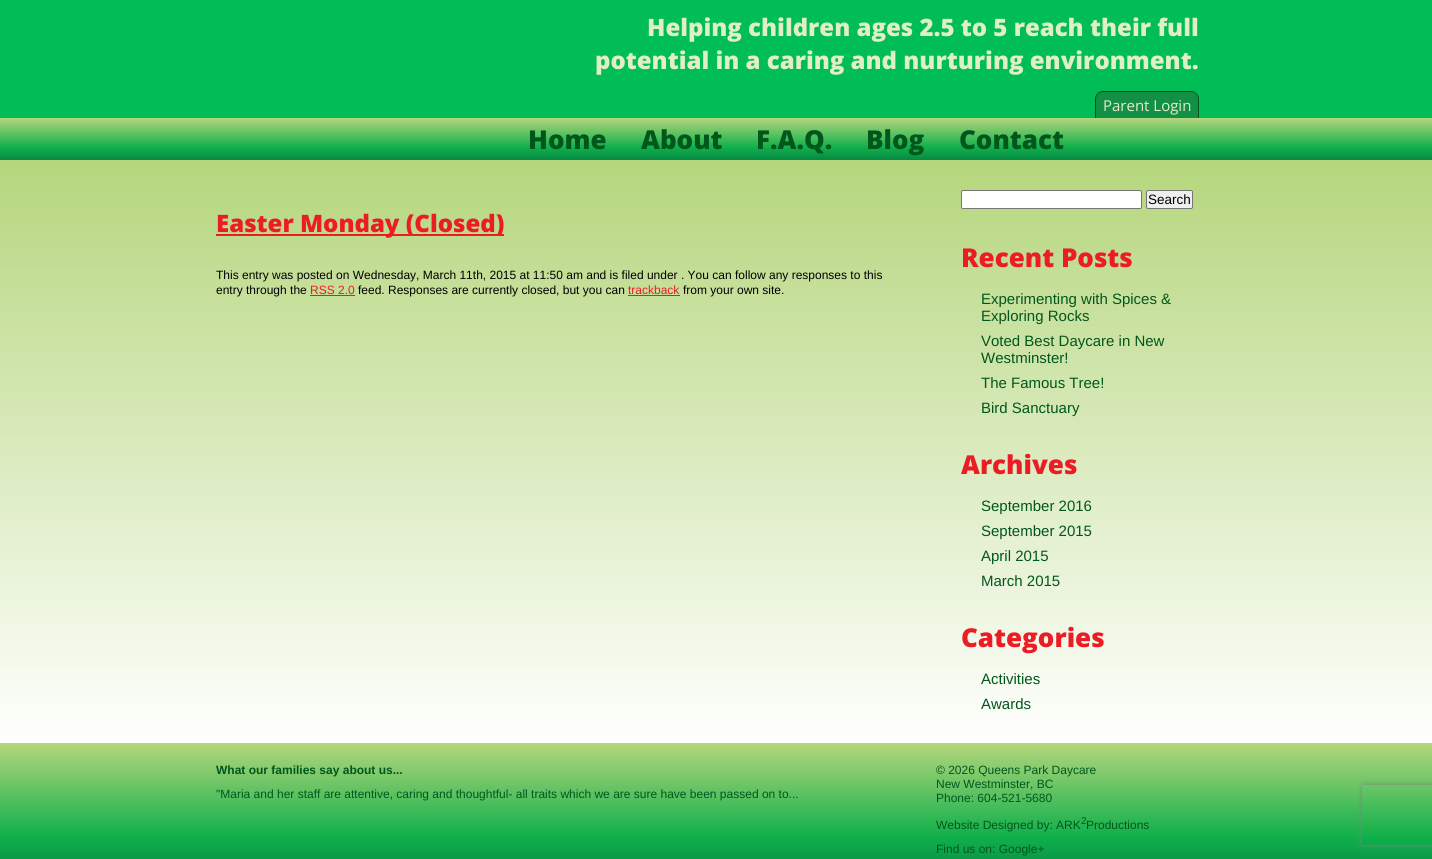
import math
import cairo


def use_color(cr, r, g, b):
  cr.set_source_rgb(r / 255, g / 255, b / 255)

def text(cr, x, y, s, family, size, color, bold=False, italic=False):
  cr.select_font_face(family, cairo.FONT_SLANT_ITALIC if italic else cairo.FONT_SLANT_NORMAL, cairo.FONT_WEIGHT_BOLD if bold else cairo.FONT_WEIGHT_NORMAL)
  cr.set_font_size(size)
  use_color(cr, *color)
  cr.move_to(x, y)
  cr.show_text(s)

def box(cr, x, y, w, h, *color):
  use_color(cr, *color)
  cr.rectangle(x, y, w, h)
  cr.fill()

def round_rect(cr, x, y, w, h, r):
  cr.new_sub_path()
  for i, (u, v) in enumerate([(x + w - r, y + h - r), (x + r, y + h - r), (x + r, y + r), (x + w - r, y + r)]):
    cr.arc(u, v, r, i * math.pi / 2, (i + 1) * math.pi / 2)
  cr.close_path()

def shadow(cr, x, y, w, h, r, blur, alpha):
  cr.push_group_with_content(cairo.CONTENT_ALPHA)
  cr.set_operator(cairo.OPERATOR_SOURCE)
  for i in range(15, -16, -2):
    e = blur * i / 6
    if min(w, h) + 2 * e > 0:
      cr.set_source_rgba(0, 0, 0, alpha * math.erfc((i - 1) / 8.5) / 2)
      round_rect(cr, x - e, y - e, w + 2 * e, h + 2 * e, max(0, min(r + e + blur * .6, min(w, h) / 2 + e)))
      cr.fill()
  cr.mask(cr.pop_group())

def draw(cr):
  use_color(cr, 0, 189, 86)
  cr.paint()
  use_color(cr, 19, 144, 70)
  cr.new_path()
  cr.move_to(1103, 91)
  cr.line_to(1191, 91)
  cr.curve_to(1195.5, 91, 1199, 94.5, 1199, 99)
  cr.line_to(1199, 118)
  cr.line_to(1095, 118)
  cr.line_to(1095, 99)
  cr.curve_to(1095, 94.5, 1098.5, 91, 1103, 91)
  cr.close_path()
  cr.fill()
  use_color(cr, 0, 87, 28)
  cr.set_fill_rule(cairo.FILL_RULE_EVEN_ODD)
  cr.new_path()
  cr.move_to(1103, 91)
  cr.line_to(1191, 91)
  cr.curve_to(1195, 91, 1199, 95, 1199, 99)
  cr.line_to(1199, 118)
  cr.line_to(1095, 118)
  cr.line_to(1095, 99)
  cr.curve_to(1095, 95, 1099, 91, 1103, 91)
  cr.close_path()
  cr.move_to(1103, 92)
  cr.line_to(1191, 92)
  cr.curve_to(1195, 92, 1198, 95, 1198, 99)
  cr.line_to(1198, 118)
  cr.line_to(1096, 118)
  cr.line_to(1096, 99)
  cr.curve_to(1096, 95, 1099, 92, 1103, 92)
  cr.close_path()
  cr.fill()
  gradient = cairo.LinearGradient(716, 118, 716, 160)
  gradient.add_color_stop_rgba(0, 0.71, 0.839, 0.486, 1)
  gradient.add_color_stop_rgba(0.7, 0.063, 0.69, 0.294, 1)
  gradient.add_color_stop_rgba(1, 0.024, 0.537, 0.267, 1)
  cr.set_source(gradient)
  cr.rectangle(0, 118, 1432, 42)
  cr.fill()
  gradient = cairo.LinearGradient(716, 160, 716, 743)
  gradient.add_color_stop_rgba(0, 0.71, 0.839, 0.486, 1)
  gradient.add_color_stop_rgba(1, 1, 1, 1, 1)
  cr.set_source(gradient)
  cr.rectangle(0, 160, 1432, 583)
  cr.fill()
  box(cr, 216, 234, 288, 2, 236, 28, 36)
  box(cr, 310, 295, 45, 1, 236, 28, 36)
  box(cr, 628, 295, 52, 1, 236, 28, 36)
  use_color(cr, 255, 255, 255)
  round_rect(cr, 961.5, 190.5, 180, 18, 1.5)
  cr.fill_preserve()
  use_color(cr, 118, 118, 118)
  cr.set_line_width(1)
  cr.stroke()
  use_color(cr, 239, 239, 239)
  round_rect(cr, 1146.5, 190.5, 46, 18, 1.5)
  cr.fill_preserve()
  use_color(cr, 118, 118, 118)
  cr.stroke()
  gradient = cairo.LinearGradient(716, 743, 716, 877)
  gradient.add_color_stop_rgba(0, 0.71, 0.839, 0.486, 1)
  gradient.add_color_stop_rgba(0.7, 0.063, 0.69, 0.294, 1)
  gradient.add_color_stop_rgba(1, 0.024, 0.537, 0.267, 1)
  cr.set_source(gradient)
  cr.rectangle(0, 743, 1432, 116)
  cr.fill()
  cr.save()
  cr.new_path()
  cr.move_to(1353, 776)
  cr.line_to(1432, 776)
  cr.line_to(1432, 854)
  cr.line_to(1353, 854)
  cr.close_path()
  cr.move_to(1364, 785)
  cr.line_to(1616, 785)
  cr.curve_to(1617, 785, 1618, 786, 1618, 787)
  cr.line_to(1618, 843)
  cr.curve_to(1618, 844, 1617, 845, 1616, 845)
  cr.line_to(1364, 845)
  cr.curve_to(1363, 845, 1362, 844, 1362, 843)
  cr.line_to(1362, 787)
  cr.curve_to(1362, 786, 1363, 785, 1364, 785)
  cr.close_path()
  cr.clip()
  use_color(cr, 128, 128, 128)
  shadow(cr, 1362, 785, 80, 60, 2, 2.5, 1)
  cr.restore()
  text(cr, 647, 36, "Helping children ages 2.5 to 5 reach their full", "Open Sans ExtraBold", 24, (225, 239, 199))
  text(cr, 595, 69, "potential in a caring and nurturing environment.", "Open Sans ExtraBold", 24, (225, 239, 199))
  text(cr, 1103, 111, "Parent Login", "Open Sans", 15, (225, 239, 199))
  text(cr, 528, 149, "Home", "Open Sans ExtraBold", 26, (0, 87, 28))
  text(cr, 641, 149, "About", "Open Sans ExtraBold", 26, (0, 87, 28))
  text(cr, 756, 149, "F.A.Q.", "Open Sans ExtraBold", 26, (0, 87, 28))
  text(cr, 866, 149, "Blog", "Open Sans ExtraBold", 26, (0, 87, 28))
  text(cr, 959, 149, "Contact", "Open Sans ExtraBold", 26, (0, 87, 28))
  text(cr, 216, 232, "Easter Monday (Closed)", "Open Sans ExtraBold", 24, (236, 28, 36))
  text(cr, 216, 279, "This entry was posted on Wednesday, March 11th, 2015 at 11:50 am and is filed under . You can follow any responses to this", "Liberation Sans", 12, (0, 0, 0))
  text(cr, 216, 294, "entry through the", "Liberation Sans", 12, (0, 0, 0))
  text(cr, 310, 294, "RSS 2.0", "Liberation Sans", 12, (236, 28, 36))
  text(cr, 358, 294, "feed. Responses are currently closed, but you can", "Liberation Sans", 12, (0, 0, 0))
  text(cr, 628, 294, "trackback", "Liberation Sans", 12, (236, 28, 36))
  text(cr, 683, 294, "from your own site.", "Liberation Sans", 12, (0, 0, 0))
  text(cr, 1148, 204, "Search", "Liberation Sans", 13.5, (0, 0, 0))
  text(cr, 961, 267, "Recent Posts", "Open Sans ExtraBold", 26, (236, 28, 36))
  text(cr, 981, 304, "Experimenting with Spices &", "Liberation Sans", 15, (0, 87, 28))
  text(cr, 981, 321, "Exploring Rocks", "Liberation Sans", 15, (0, 87, 28))
  text(cr, 981, 346, "Voted Best Daycare in New", "Liberation Sans", 15, (0, 87, 28))
  text(cr, 981, 363, "Westminster!", "Liberation Sans", 15, (0, 87, 28))
  text(cr, 981, 388, "The Famous Tree!", "Liberation Sans", 15, (0, 87, 28))
  text(cr, 981, 413, "Bird Sanctuary", "Liberation Sans", 15, (0, 87, 28))
  text(cr, 961, 474, "Archives", "Open Sans ExtraBold", 26, (236, 28, 36))
  text(cr, 981, 511, "September 2016", "Liberation Sans", 15, (0, 87, 28))
  text(cr, 981, 536, "September 2015", "Liberation Sans", 15, (0, 87, 28))
  text(cr, 981, 561, "April 2015", "Liberation Sans", 15, (0, 87, 28))
  text(cr, 981, 586, "March 2015", "Liberation Sans", 15, (0, 87, 28))
  text(cr, 961, 647, "Categories", "Open Sans ExtraBold", 26, (236, 28, 36))
  text(cr, 981, 684, "Activities", "Liberation Sans", 15, (0, 87, 28))
  text(cr, 981, 709, "Awards", "Liberation Sans", 15, (0, 87, 28))
  text(cr, 216, 774, "What our families say about us...", "Liberation Sans", 12, (0, 87, 28), bold=True)
  text(cr, 216, 798, "\"Maria and her staff are attentive, caring and thoughtful- all traits which we are sure have been passed on to...", "Liberation Sans", 12, (0, 87, 28))
  text(cr, 936, 774, "© 2026 Queens Park Daycare", "Liberation Sans", 12, (0, 87, 28))
  text(cr, 936, 788, "New Westminster, BC", "Liberation Sans", 12, (0, 87, 28))
  text(cr, 936, 802, "Phone: 604-521-5680", "Liberation Sans", 12, (0, 87, 28))
  text(cr, 936, 829, "Website Designed by: ARK", "Liberation Sans", 12, (0, 87, 28))
  text(cr, 1081, 824, "2", "Liberation Sans", 10, (0, 87, 28))
  text(cr, 1086, 829, "Productions", "Liberation Sans", 12, (0, 87, 28))
  text(cr, 936, 853, "Find us on: Google+", "Liberation Sans", 12, (0, 87, 28))


surface = cairo.ImageSurface(cairo.FORMAT_RGB24, 1432, 859)
cr = cairo.Context(surface)
options = cairo.FontOptions()
options.set_hint_metrics(cairo.HINT_METRICS_OFF)
options.set_hint_style(cairo.HINT_STYLE_NONE)
cr.set_font_options(options)
cr.set_miter_limit(4)
draw(cr)
surface.write_to_png("out.png")
